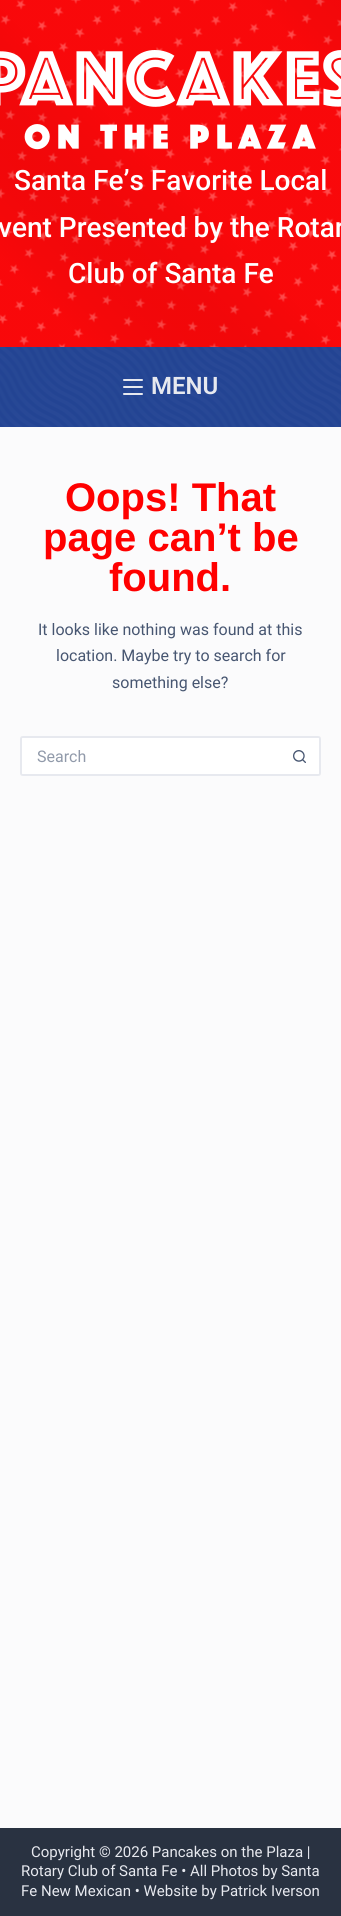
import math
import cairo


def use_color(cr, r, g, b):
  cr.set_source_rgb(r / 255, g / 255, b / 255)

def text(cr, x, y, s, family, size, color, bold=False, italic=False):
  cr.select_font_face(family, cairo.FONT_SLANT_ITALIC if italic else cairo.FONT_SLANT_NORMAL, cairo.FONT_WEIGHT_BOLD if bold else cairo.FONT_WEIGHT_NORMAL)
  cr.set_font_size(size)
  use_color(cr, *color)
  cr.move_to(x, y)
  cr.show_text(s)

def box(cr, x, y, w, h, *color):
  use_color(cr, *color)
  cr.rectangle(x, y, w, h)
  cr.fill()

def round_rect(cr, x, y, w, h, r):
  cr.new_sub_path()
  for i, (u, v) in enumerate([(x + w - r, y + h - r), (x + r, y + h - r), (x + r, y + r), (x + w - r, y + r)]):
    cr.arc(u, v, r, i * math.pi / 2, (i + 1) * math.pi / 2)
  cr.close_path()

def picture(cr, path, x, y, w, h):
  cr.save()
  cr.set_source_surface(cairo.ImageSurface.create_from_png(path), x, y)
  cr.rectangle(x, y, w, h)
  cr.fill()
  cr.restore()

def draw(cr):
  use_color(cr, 251, 251, 252)
  cr.paint()
  picture(cr, "img_01.png", 0, 0, 341, 347)
  picture(cr, "img_02.png", 0, 50, 341, 100)
  picture(cr, "img_03.png", 0, 347, 341, 80)
  use_color(cr, 231, 233, 239)
  round_rect(cr, 123, 379, 20, 2, 1)
  cr.fill()
  round_rect(cr, 123, 386, 20, 2, 1)
  cr.fill()
  round_rect(cr, 123, 393, 20, 2, 1)
  cr.fill()
  use_color(cr, 255, 255, 255)
  cr.new_path()
  cr.move_to(23, 736)
  cr.line_to(281, 736)
  cr.line_to(281, 776)
  cr.line_to(23, 776)
  cr.curve_to(21.5, 776, 20, 774.5, 20, 773)
  cr.line_to(20, 739)
  cr.curve_to(20, 737.5, 21.5, 736, 23, 736)
  cr.close_path()
  cr.fill()
  use_color(cr, 231, 233, 239)
  cr.set_fill_rule(cairo.FILL_RULE_EVEN_ODD)
  cr.new_path()
  cr.move_to(23, 736)
  cr.line_to(281, 736)
  cr.line_to(281, 776)
  cr.line_to(23, 776)
  cr.curve_to(21, 776, 20, 775, 20, 773)
  cr.line_to(20, 739)
  cr.curve_to(20, 737, 21, 736, 23, 736)
  cr.close_path()
  cr.move_to(23, 738)
  cr.line_to(281, 738)
  cr.line_to(281, 774)
  cr.line_to(23, 774)
  cr.curve_to(22, 774, 22, 774, 22, 773)
  cr.line_to(22, 739)
  cr.curve_to(22, 738, 22, 738, 23, 738)
  cr.close_path()
  cr.fill()
  use_color(cr, 255, 255, 255)
  cr.new_path()
  cr.move_to(281, 736)
  cr.line_to(318, 736)
  cr.curve_to(319.5, 736, 321, 737.5, 321, 739)
  cr.line_to(321, 773)
  cr.curve_to(321, 774.5, 319.5, 776, 318, 776)
  cr.line_to(281, 776)
  cr.close_path()
  cr.fill()
  use_color(cr, 231, 233, 239)
  cr.new_path()
  cr.move_to(281, 736)
  cr.line_to(318, 736)
  cr.curve_to(320, 736, 321, 737, 321, 739)
  cr.line_to(321, 773)
  cr.curve_to(321, 775, 320, 776, 318, 776)
  cr.line_to(281, 776)
  cr.close_path()
  cr.move_to(281, 738)
  cr.line_to(318, 738)
  cr.curve_to(319, 738, 319, 738, 319, 739)
  cr.line_to(319, 773)
  cr.curve_to(319, 774, 319, 774, 318, 774)
  cr.line_to(281, 774)
  cr.close_path()
  cr.fill()
  picture(cr, "img_04.png", 293, 750, 13, 13)
  box(cr, 0, 1828, 341, 88, 41, 50, 65)
  text(cr, 14, 190, "Santa Fe’s Favorite Local", "Roboto Medium", 28, (255, 255, 255))
  text(cr, -2, 237, "vent Presented by the Rotar", "Roboto Medium", 28, (255, 255, 255))
  text(cr, 68, 283, "Club of Santa Fe", "Roboto Medium", 28, (255, 255, 255))
  text(cr, 151, 394, "MENU", "Roboto SemiBold", 24, (231, 233, 239))
  text(cr, 65, 511, "Oops! That", "Liberation Sans", 40, (255, 0, 0), bold=True)
  text(cr, 43, 551, "page can’t be", "Liberation Sans", 40, (255, 0, 0), bold=True)
  text(cr, 109, 591, "found.", "Liberation Sans", 40, (255, 0, 0), bold=True)
  text(cr, 38, 635, "It looks like nothing was found at this", "Roboto", 16, (71, 86, 113))
  text(cr, 56, 661, "location. Maybe try to search for", "Roboto", 16, (71, 86, 113))
  text(cr, 112, 688, "something else?", "Roboto", 16, (71, 86, 113))
  text(cr, 37, 762, "Search", "Roboto", 16, (145, 154, 170))
  text(cr, 31, 1857, "Copyright © 2026 Pancakes on the Plaza |", "Roboto", 15, (231, 233, 239))
  text(cr, 21, 1876, "Rotary Club of Santa Fe • All Photos by Santa", "Roboto", 15, (231, 233, 239))
  text(cr, 21, 1896, "Fe New Mexican • Website by Patrick Iverson", "Roboto", 15, (231, 233, 239))


surface = cairo.ImageSurface(cairo.FORMAT_RGB24, 341, 1916)
cr = cairo.Context(surface)
options = cairo.FontOptions()
options.set_hint_metrics(cairo.HINT_METRICS_OFF)
options.set_hint_style(cairo.HINT_STYLE_NONE)
cr.set_font_options(options)
cr.set_miter_limit(4)
draw(cr)
surface.write_to_png("out.png")
